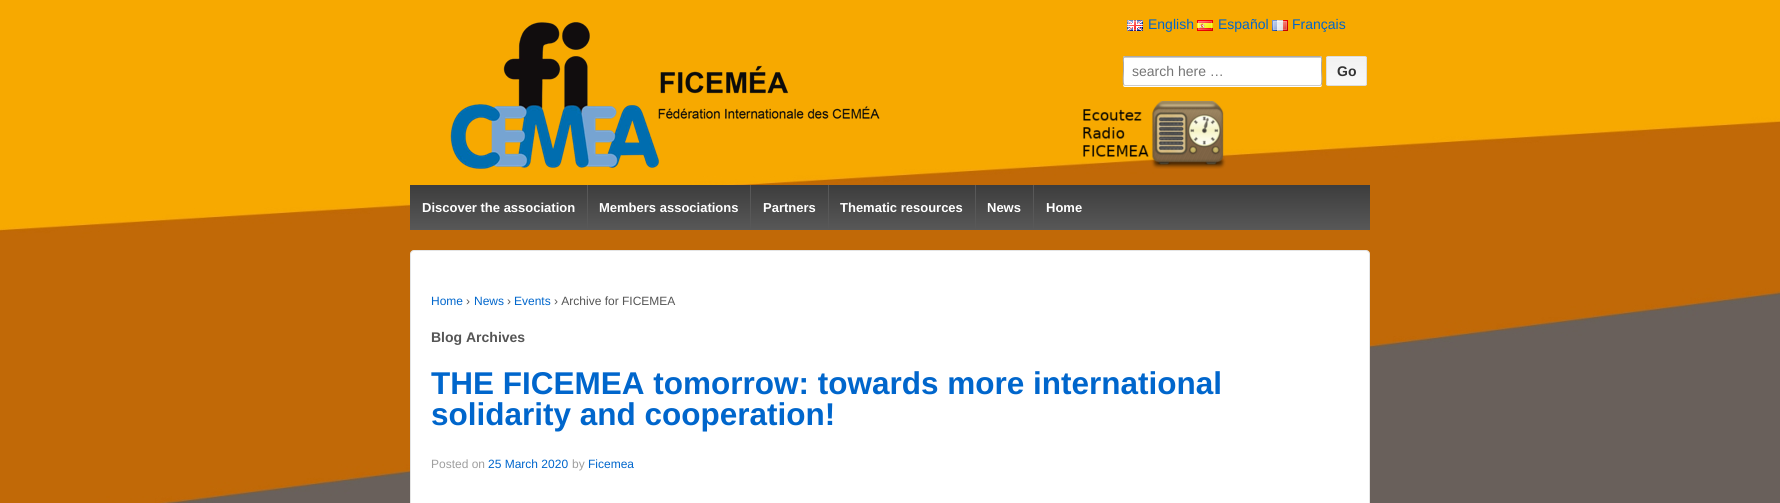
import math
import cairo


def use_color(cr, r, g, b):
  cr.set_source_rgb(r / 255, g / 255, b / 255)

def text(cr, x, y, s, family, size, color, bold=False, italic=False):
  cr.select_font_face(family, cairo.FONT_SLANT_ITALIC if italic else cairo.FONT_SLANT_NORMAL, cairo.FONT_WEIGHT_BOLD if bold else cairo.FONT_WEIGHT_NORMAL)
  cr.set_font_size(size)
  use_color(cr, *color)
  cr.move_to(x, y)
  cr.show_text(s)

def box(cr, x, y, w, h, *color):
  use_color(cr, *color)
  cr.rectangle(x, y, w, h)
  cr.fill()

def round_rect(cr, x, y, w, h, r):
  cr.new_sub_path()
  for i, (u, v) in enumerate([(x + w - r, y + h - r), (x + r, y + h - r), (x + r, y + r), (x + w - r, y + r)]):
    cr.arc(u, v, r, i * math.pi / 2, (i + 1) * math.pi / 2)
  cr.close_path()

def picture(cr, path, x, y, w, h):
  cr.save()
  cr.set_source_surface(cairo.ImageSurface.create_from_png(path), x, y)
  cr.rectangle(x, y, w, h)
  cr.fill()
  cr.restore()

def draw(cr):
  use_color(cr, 255, 255, 255)
  cr.paint()
  picture(cr, "img_01.png", 0, 0, 1780, 503)
  picture(cr, "img_02.png", 450, 22, 430, 147)
  picture(cr, "img_03.png", 1127, 20, 16, 11)
  picture(cr, "img_04.png", 1197, 20, 16, 11)
  picture(cr, "img_05.png", 1272, 20, 16, 11)
  use_color(cr, 255, 255, 255)
  cr.new_path()
  cr.move_to(1123, 84)
  cr.curve_to(1123, 85, 1123, 87, 1125, 87)
  cr.line_to(1320, 87)
  cr.curve_to(1322, 87, 1322, 85, 1322, 84)
  cr.curve_to(1322, 85, 1321, 86, 1320, 86)
  cr.line_to(1125, 86)
  cr.curve_to(1124, 86, 1123, 85, 1123, 84)
  cr.close_path()
  cr.fill()
  round_rect(cr, 1123, 56, 199, 30, 2)
  cr.fill()
  use_color(cr, 204, 204, 204)
  cr.new_path()
  cr.move_to(1125, 58)
  cr.line_to(1321, 58)
  cr.line_to(1321, 59)
  cr.curve_to(1321, 58, 1321, 57, 1320, 57)
  cr.line_to(1124, 57)
  cr.line_to(1124, 59)
  cr.curve_to(1124, 58, 1124, 58, 1125, 58)
  cr.close_path()
  cr.fill()
  cr.new_path()
  cr.move_to(1321, 85)
  cr.line_to(1320, 85.5)
  cr.line_to(1125, 85.5)
  cr.line_to(1124, 85)
  cr.set_line_width(1)
  cr.stroke()
  cr.new_path()
  cr.move_to(1124, 85)
  cr.curve_to(1122.5, 83.5, 1123.5, 73, 1123.5, 71)
  cr.line_to(1123.5, 62.5)
  cr.curve_to(1123.5, 62, 1122.5, 56.5, 1125, 56.5)
  cr.line_to(1320, 56.5)
  cr.curve_to(1322.5, 56.5, 1321.5, 62, 1321.5, 62.5)
  cr.line_to(1321.5, 71)
  cr.curve_to(1321.5, 73, 1322.5, 83.5, 1321, 85)
  use_color(cr, 170, 170, 170)
  cr.stroke()
  cr.save()
  round_rect(cr, 1326, 56, 41, 30, 2)
  cr.clip()
  gradient = cairo.LinearGradient(1347, 85, 1347, 57)
  gradient.add_color_stop_rgba(0, 0.976, 0.976, 0.976, 1)
  gradient.add_color_stop_rgba(1, 0.945, 0.945, 0.945, 1)
  cr.set_source(gradient)
  cr.rectangle(1326, 57, 41, 28)
  cr.fill()
  cr.restore()
  use_color(cr, 245, 245, 245)
  cr.new_path()
  cr.move_to(1328, 58)
  cr.line_to(1360.5, 58)
  cr.curve_to(1362, 58, 1366, 57, 1366, 59)
  cr.curve_to(1366, 55.5, 1362, 57, 1359, 57)
  cr.line_to(1334, 57)
  cr.curve_to(1330.5, 57, 1327, 55.5, 1327, 59)
  cr.close_path()
  cr.fill()
  round_rect(cr, 1326.5, 56.5, 40, 29, 1.5)
  use_color(cr, 221, 221, 221)
  cr.stroke()
  picture(cr, "img_06.png", 1083, 101, 143, 68)
  gradient = cairo.LinearGradient(890, 230, 890, 185)
  gradient.add_color_stop_rgba(0, 0.345, 0.345, 0.345, 1)
  gradient.add_color_stop_rgba(1, 0.239, 0.239, 0.239, 1)
  cr.set_source(gradient)
  cr.rectangle(410, 185, 960, 45)
  cr.fill()
  box(cr, 587, 185, 1, 45, 88, 88, 88)
  box(cr, 750, 185, 1, 45, 88, 88, 88)
  box(cr, 828, 185, 1, 45, 88, 88, 88)
  box(cr, 975, 185, 1, 45, 88, 88, 88)
  box(cr, 1033, 185, 1, 45, 88, 88, 88)
  use_color(cr, 255, 255, 255)
  round_rect(cr, 410.5, 250.5, 959, 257, 3.5)
  cr.fill_preserve()
  use_color(cr, 229, 229, 229)
  cr.stroke()
  text(cr, 1148, 29, "English", "Liberation Sans", 14, (0, 102, 204))
  text(cr, 1218, 29, "Español", "Liberation Sans", 14, (0, 102, 204))
  text(cr, 1292, 29, "Français", "Liberation Sans", 14, (0, 102, 204))
  text(cr, 1132, 76, "search here …", "Liberation Sans", 14, (117, 117, 117))
  text(cr, 1337, 76, "Go", "Liberation Sans", 14, (51, 51, 51), bold=True)
  text(cr, 422, 212, "Discover the association", "Liberation Sans", 13, (255, 255, 255), bold=True)
  text(cr, 599, 212, "Members associations", "Liberation Sans", 13, (255, 255, 255), bold=True)
  text(cr, 763, 212, "Partners", "Liberation Sans", 13, (255, 255, 255), bold=True)
  text(cr, 840, 212, "Thematic resources", "Liberation Sans", 13, (255, 255, 255), bold=True)
  text(cr, 987, 212, "News", "Liberation Sans", 13, (255, 255, 255), bold=True)
  text(cr, 1046, 212, "Home", "Liberation Sans", 13, (255, 255, 255), bold=True)
  text(cr, 431, 305, "Home", "Liberation Sans", 12, (0, 102, 204))
  text(cr, 466, 305, "›", "Liberation Sans", 12, (85, 85, 85))
  text(cr, 474, 305, "News", "Liberation Sans", 12, (0, 102, 204))
  text(cr, 507, 305, "›", "Liberation Sans", 12, (85, 85, 85))
  text(cr, 514, 305, "Events", "Liberation Sans", 12, (0, 102, 204))
  text(cr, 554, 305, "› Archive for FICEMEA", "Liberation Sans", 12, (85, 85, 85))
  text(cr, 431, 342, "Blog Archives", "Liberation Sans", 14, (85, 85, 85), bold=True)
  text(cr, 431, 394, "THE FICEMEA tomorrow: towards more international", "Liberation Sans", 31.5, (0, 102, 204), bold=True)
  text(cr, 431, 425, "solidarity and cooperation!", "Liberation Sans", 31.5, (0, 102, 204), bold=True)
  text(cr, 431, 468, "Posted on", "Liberation Sans", 12, (159, 159, 159))
  text(cr, 488, 468, "25 March 2020", "Liberation Sans", 12, (0, 102, 204))
  text(cr, 572, 468, "by", "Liberation Sans", 12, (159, 159, 159))
  text(cr, 588, 468, "Ficemea", "Liberation Sans", 12, (0, 102, 204))


surface = cairo.ImageSurface(cairo.FORMAT_RGB24, 1780, 503)
cr = cairo.Context(surface)
options = cairo.FontOptions()
options.set_hint_metrics(cairo.HINT_METRICS_OFF)
options.set_hint_style(cairo.HINT_STYLE_NONE)
cr.set_font_options(options)
cr.set_miter_limit(4)
draw(cr)
surface.write_to_png("out.png")
